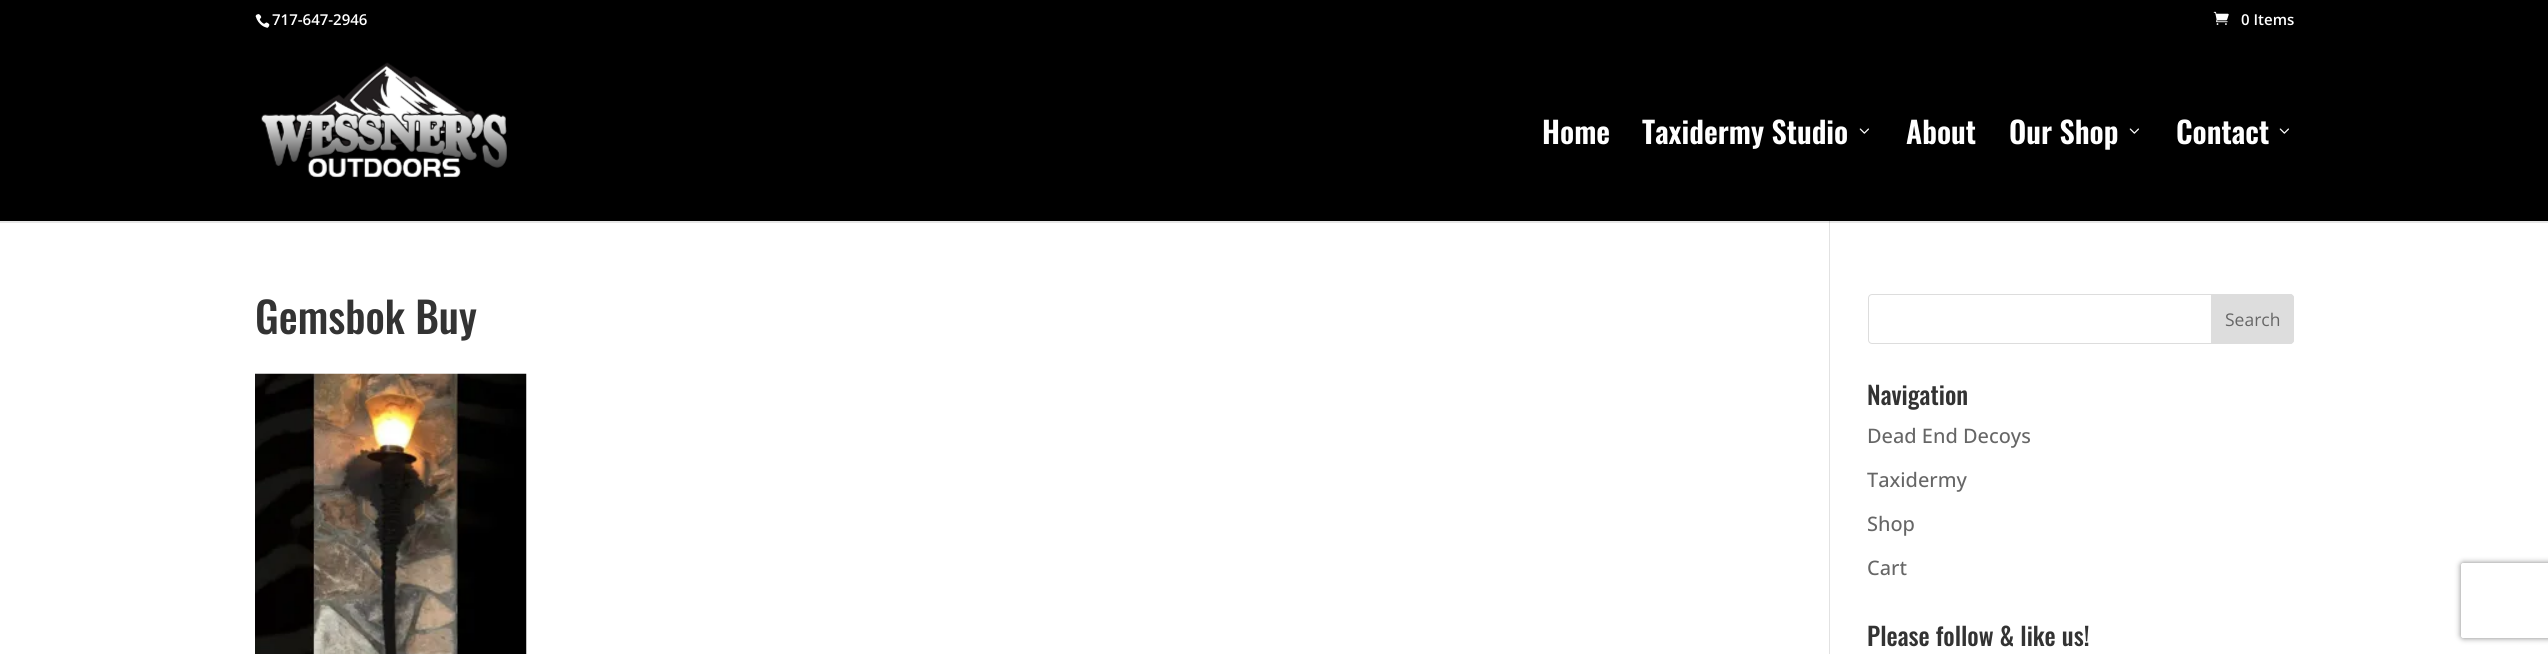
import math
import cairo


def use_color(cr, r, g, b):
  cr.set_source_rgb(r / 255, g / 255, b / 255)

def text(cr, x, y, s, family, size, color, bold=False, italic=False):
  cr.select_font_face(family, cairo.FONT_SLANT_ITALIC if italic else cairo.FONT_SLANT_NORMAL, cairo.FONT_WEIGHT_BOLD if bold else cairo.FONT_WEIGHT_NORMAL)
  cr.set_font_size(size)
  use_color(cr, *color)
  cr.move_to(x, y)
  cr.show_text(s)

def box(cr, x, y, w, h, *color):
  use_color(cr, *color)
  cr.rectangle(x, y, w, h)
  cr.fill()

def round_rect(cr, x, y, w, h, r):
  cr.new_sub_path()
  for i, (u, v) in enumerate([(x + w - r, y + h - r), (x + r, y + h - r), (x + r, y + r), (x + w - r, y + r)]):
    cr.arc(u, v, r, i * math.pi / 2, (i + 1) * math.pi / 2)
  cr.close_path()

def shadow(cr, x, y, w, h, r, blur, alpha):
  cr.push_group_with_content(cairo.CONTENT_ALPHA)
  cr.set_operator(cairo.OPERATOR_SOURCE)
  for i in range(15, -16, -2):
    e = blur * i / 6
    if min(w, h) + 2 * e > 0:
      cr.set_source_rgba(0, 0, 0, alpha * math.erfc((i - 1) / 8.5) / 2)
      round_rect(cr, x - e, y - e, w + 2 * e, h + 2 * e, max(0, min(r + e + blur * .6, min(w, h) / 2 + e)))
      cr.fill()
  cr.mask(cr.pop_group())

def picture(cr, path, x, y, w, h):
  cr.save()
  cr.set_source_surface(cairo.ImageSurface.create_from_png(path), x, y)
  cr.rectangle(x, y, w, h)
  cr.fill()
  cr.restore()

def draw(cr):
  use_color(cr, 0, 0, 0)
  cr.paint()
  picture(cr, "img_01.png", 255, 14, 15, 14)
  picture(cr, "img_02.png", 2213, 11, 16, 14)
  box(cr, 0, 221, 2548, 433, 255, 255, 255)
  box(cr, 1829, 221, 1, 433, 226, 226, 226)
  cr.set_source_rgba(0, 0, 0, 0.1)
  cr.new_path()
  cr.move_to(0, 221)
  cr.line_to(0, 223)
  cr.line_to(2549, 223)
  cr.line_to(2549, 40)
  cr.line_to(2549, 221)
  cr.close_path()
  cr.fill()
  picture(cr, "img_03.png", 261, 62, 246, 116)
  picture(cr, "img_04.png", 1859, 128, 10, 6)
  picture(cr, "img_04.png", 2129, 128, 10, 6)
  picture(cr, "img_04.png", 2279, 128, 10, 6)
  picture(cr, "img_05.png", 255, 373, 272, 281)
  round_rect(cr, 1868.5, 294.5, 425, 49, 3.5)
  use_color(cr, 221, 221, 221)
  cr.set_line_width(1)
  cr.stroke()
  cr.new_path()
  cr.move_to(2211.5, 294.5)
  cr.line_to(2290, 294.5)
  cr.curve_to(2292, 294.5, 2293.5, 296, 2293.5, 298)
  cr.line_to(2293.5, 340)
  cr.curve_to(2293.5, 342, 2292, 343.5, 2290, 343.5)
  cr.line_to(2211.5, 343.5)
  cr.close_path()
  cr.fill_preserve()
  cr.stroke()
  cr.save()
  cr.set_fill_rule(cairo.FILL_RULE_EVEN_ODD)
  cr.new_path()
  cr.move_to(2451, 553)
  cr.line_to(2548, 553)
  cr.line_to(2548, 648)
  cr.line_to(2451, 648)
  cr.close_path()
  cr.move_to(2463.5, 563)
  cr.line_to(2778.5, 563)
  cr.curve_to(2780, 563, 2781, 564, 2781, 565.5)
  cr.line_to(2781, 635.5)
  cr.curve_to(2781, 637, 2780, 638, 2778.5, 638)
  cr.line_to(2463.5, 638)
  cr.curve_to(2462, 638, 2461, 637, 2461, 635.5)
  cr.line_to(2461, 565.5)
  cr.curve_to(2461, 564, 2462, 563, 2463.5, 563)
  cr.close_path()
  cr.clip()
  use_color(cr, 128, 128, 128)
  shadow(cr, 2461, 563, 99, 75, 2.5, 3, 1)
  cr.restore()
  text(cr, 272, 25, "717-647-2946", "Open Sans SemiBold", 15, (255, 255, 255))
  text(cr, 2241, 25, "0 Items", "Open Sans SemiBold", 15, (255, 255, 255))
  text(cr, 1542, 144, "Home", "Oswald SemiBold", 30, (255, 255, 255))
  text(cr, 1642, 144, "Taxidermy Studio", "Oswald SemiBold", 30, (255, 255, 255))
  text(cr, 1906, 144, "About", "Oswald SemiBold", 30, (255, 255, 255))
  text(cr, 2009, 144, "Our Shop", "Oswald SemiBold", 30, (255, 255, 255))
  text(cr, 2176, 144, "Contact", "Oswald SemiBold", 30, (255, 255, 255))
  text(cr, 255, 334, "Gemsbok Buy", "Oswald Medium", 42.5, (51, 51, 51))
  text(cr, 2225, 326, "Search", "Open Sans", 17.5, (102, 102, 102))
  text(cr, 1867, 405, "Navigation", "Oswald Medium", 25, (51, 51, 51))
  text(cr, 1867, 443, "Dead End Decoys", "Open Sans Medium", 20, (102, 102, 102))
  text(cr, 1867, 487, "Taxidermy", "Open Sans Medium", 20, (102, 102, 102))
  text(cr, 1867, 531, "Shop", "Open Sans Medium", 20, (102, 102, 102))
  text(cr, 1867, 575, "Cart", "Open Sans Medium", 20, (102, 102, 102))
  text(cr, 1867, 646, "Please follow & like us!", "Oswald Medium", 25, (51, 51, 51))


surface = cairo.ImageSurface(cairo.FORMAT_RGB24, 2548, 654)
cr = cairo.Context(surface)
options = cairo.FontOptions()
options.set_hint_metrics(cairo.HINT_METRICS_OFF)
options.set_hint_style(cairo.HINT_STYLE_NONE)
cr.set_font_options(options)
cr.set_miter_limit(4)
draw(cr)
surface.write_to_png("out.png")
